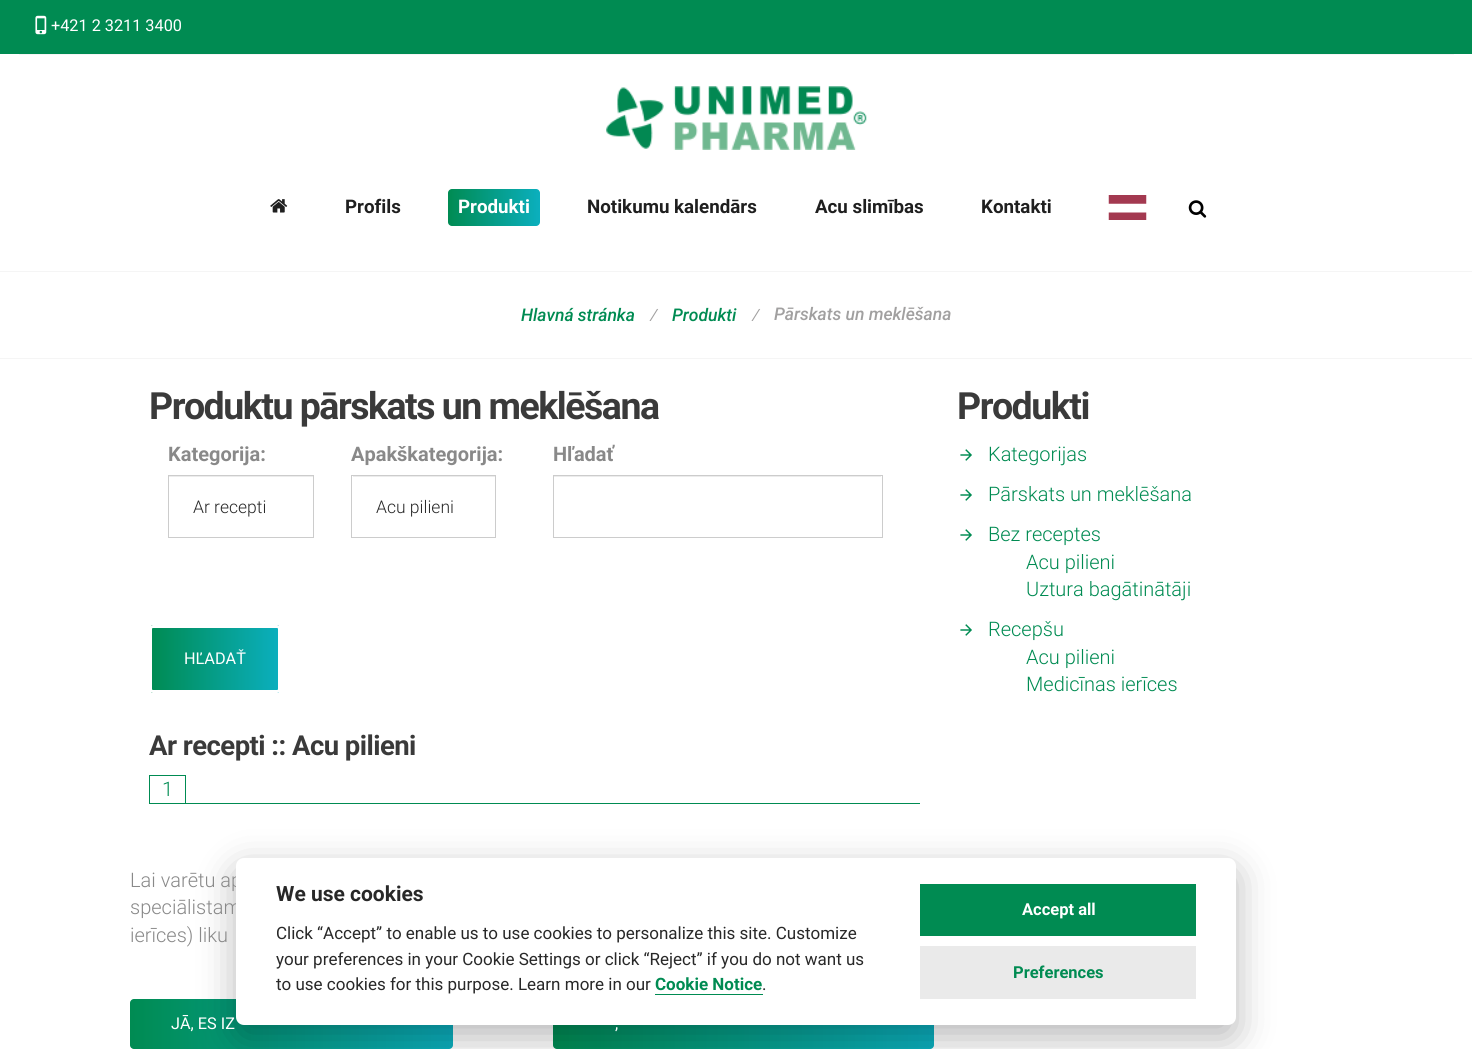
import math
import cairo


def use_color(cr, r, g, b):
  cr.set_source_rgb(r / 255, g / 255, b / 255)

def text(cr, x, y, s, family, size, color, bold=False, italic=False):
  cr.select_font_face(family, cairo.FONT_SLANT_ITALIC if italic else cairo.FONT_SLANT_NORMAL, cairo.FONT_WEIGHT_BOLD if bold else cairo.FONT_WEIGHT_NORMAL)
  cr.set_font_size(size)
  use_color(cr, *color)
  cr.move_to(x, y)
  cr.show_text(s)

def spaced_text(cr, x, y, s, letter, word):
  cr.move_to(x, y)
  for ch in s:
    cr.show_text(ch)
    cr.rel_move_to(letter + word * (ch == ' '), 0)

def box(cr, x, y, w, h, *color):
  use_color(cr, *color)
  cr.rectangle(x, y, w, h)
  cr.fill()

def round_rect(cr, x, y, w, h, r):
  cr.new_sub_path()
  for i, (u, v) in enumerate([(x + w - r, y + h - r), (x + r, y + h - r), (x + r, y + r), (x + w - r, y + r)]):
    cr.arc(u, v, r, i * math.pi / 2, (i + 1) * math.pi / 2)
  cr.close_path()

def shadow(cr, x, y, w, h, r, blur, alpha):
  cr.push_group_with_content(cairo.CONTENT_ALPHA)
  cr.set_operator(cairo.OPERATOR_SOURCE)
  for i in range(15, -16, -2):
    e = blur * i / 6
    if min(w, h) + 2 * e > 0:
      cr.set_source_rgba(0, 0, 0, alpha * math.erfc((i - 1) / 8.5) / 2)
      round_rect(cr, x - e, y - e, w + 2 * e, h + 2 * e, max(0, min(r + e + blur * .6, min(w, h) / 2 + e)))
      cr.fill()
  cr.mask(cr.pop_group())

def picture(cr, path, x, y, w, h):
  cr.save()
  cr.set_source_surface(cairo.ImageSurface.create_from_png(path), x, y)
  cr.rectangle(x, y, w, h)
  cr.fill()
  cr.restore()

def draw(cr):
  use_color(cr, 255, 255, 255)
  cr.paint()
  box(cr, 0, 271, 1472, 1, 245, 245, 245)
  box(cr, 0, 0, 1472, 54, 0, 139, 82)
  picture(cr, "img_01.png", 35, 15, 12, 20)
  box(cr, 19, 54, 1435, 1, 245, 245, 245)
  picture(cr, "img_02.png", 606, 86, 261, 64)
  picture(cr, "img_03.png", 270, 199, 18, 14)
  gradient = cairo.LinearGradient(448, 208, 540, 208)
  gradient.add_color_stop_rgba(0, 0, 0.545, 0.322, 1)
  gradient.add_color_stop_rgba(1, 0.043, 0.686, 0.745, 1)
  cr.set_source(gradient)
  round_rect(cr, 448, 189, 92, 37, 4)
  cr.fill()
  picture(cr, "img_04.png", 1108, 195, 39, 25)
  picture(cr, "img_05.png", 1188, 200, 19, 18)
  box(cr, 0, 358, 1472, 1, 245, 245, 245)
  box(cr, 169, 476, 144, 1, 236, 236, 236)
  cr.rectangle(168.5, 475.5, 145, 62)
  use_color(cr, 204, 204, 204)
  cr.set_line_width(1)
  cr.stroke()
  box(cr, 353, 476, 142, 1, 236, 236, 236)
  cr.rectangle(351.5, 475.5, 144, 62)
  use_color(cr, 204, 204, 204)
  cr.stroke()
  box(cr, 554, 476, 327, 1, 236, 236, 236)
  cr.rectangle(553.5, 475.5, 329, 62)
  use_color(cr, 204, 204, 204)
  cr.stroke()
  cr.save()
  round_rect(cr, 149, 625, 132, 68, 4)
  cr.clip()
  gradient = cairo.LinearGradient(151, 659, 279, 659)
  gradient.add_color_stop_rgba(0, 0, 0.545, 0.322, 1)
  gradient.add_color_stop_rgba(1, 0.043, 0.686, 0.745, 1)
  cr.set_source(gradient)
  cr.rectangle(151, 625, 128, 68)
  cr.fill()
  cr.restore()
  round_rect(cr, 150.5, 626.5, 129, 65, 2.5)
  use_color(cr, 255, 255, 255)
  cr.set_line_width(3)
  cr.stroke()
  box(cr, 149, 803, 771, 1, 0, 139, 82)
  box(cr, 149, 775, 37, 1, 0, 139, 82)
  box(cr, 185, 775, 1, 28, 0, 139, 82)
  box(cr, 149, 775, 1, 28, 0, 139, 82)
  gradient = cairo.LinearGradient(130, 1024, 453, 1024)
  gradient.add_color_stop_rgba(0, 0, 0.545, 0.322, 1)
  gradient.add_color_stop_rgba(1, 0.043, 0.686, 0.745, 1)
  cr.set_source(gradient)
  round_rect(cr, 130, 999, 323, 50, 4)
  cr.fill()
  gradient = cairo.LinearGradient(553, 1024, 934, 1024)
  gradient.add_color_stop_rgba(0, 0, 0.545, 0.322, 1)
  gradient.add_color_stop_rgba(1, 0.043, 0.686, 0.745, 1)
  cr.set_source(gradient)
  round_rect(cr, 553, 999, 381, 50, 4)
  cr.fill()
  picture(cr, "img_06.png", 960, 449, 12, 12)
  picture(cr, "img_06.png", 960, 489, 12, 12)
  picture(cr, "img_06.png", 960, 529, 12, 12)
  picture(cr, "img_06.png", 960, 624, 12, 12)
  use_color(cr, 2, 2, 3)
  shadow(cr, 236, 870, 1000, 168, 8, 19, 0.28)
  text(cr, 51, 31, "+421 2 3211 3400", "Roboto", 16.25, (255, 255, 255))
  text(cr, 345, 213, "Profils", "Roboto", 18.75, (31, 31, 31), bold=True)
  text(cr, 458, 213, "Produkti", "Roboto", 18.75, (255, 255, 255), bold=True)
  text(cr, 587, 213, "Notikumu kalendārs", "Roboto", 18.75, (31, 31, 31), bold=True)
  text(cr, 815, 213, "Acu slimības", "Roboto", 18.75, (31, 31, 31), bold=True)
  text(cr, 981, 213, "Kontakti", "Roboto", 18.75, (31, 31, 31), bold=True)
  text(cr, 521, 321, "Hlavná stránka", "Roboto Medium", 17.5, (0, 139, 82), italic=True)
  text(cr, 653, 321, "∕", "Liberation Sans", 17.5, (161, 160, 160))
  text(cr, 672, 321, "Produkti", "Roboto Medium", 17.5, (0, 139, 82), italic=True)
  text(cr, 755, 321, "∕", "Liberation Sans", 17.5, (161, 160, 160))
  text(cr, 774, 320, "Pārskats un meklēšana", "Roboto Medium", 17.5, (161, 160, 160), italic=True)
  cr.select_font_face("Roboto", cairo.FONT_SLANT_NORMAL, cairo.FONT_WEIGHT_BOLD)
  cr.set_font_size(37.5)
  use_color(cr, 58, 58, 58)
  spaced_text(cr, 149, 419, "Produktu pārskats un meklēšana", -1.5, 0)
  text(cr, 168, 461, "Kategorija:", "Roboto", 20, (137, 137, 137), bold=True)
  text(cr, 193, 513, "Ar recepti", "Roboto Light", 17.5, (40, 40, 40))
  text(cr, 351, 461, "Apakškategorija:", "Roboto", 20, (137, 137, 137), bold=True)
  text(cr, 376, 513, "Acu pilieni", "Roboto Light", 17.5, (40, 40, 40))
  text(cr, 553, 461, "Hľadať", "Roboto", 20, (137, 137, 137), bold=True)
  text(cr, 184, 664, "HĽADAŤ", "Roboto", 16.25, (255, 255, 255))
  cr.select_font_face("Roboto", cairo.FONT_SLANT_NORMAL, cairo.FONT_WEIGHT_BOLD)
  cr.set_font_size(27.5)
  use_color(cr, 58, 58, 58)
  spaced_text(cr, 149, 755, "Ar recepti :: Acu pilieni", -0.55, 0)
  text(cr, 162, 796, "1", "Roboto Light", 20, (0, 139, 82))
  text(cr, 130, 887, "Lai varētu ap", "Roboto Light", 20, (137, 137, 137))
  text(cr, 130, 914, "speciālistam", "Roboto Light", 20, (137, 137, 137))
  text(cr, 130, 942, "ierīces) liku", "Roboto Light", 20, (137, 137, 137))
  text(cr, 171, 1029, "JĀ, ES IZ", "Roboto", 16.25, (255, 255, 255))
  text(cr, 615, 1029, ",", "Roboto", 16.25, (255, 255, 255))
  cr.select_font_face("Roboto", cairo.FONT_SLANT_NORMAL, cairo.FONT_WEIGHT_BOLD)
  cr.set_font_size(37.5)
  use_color(cr, 58, 58, 58)
  spaced_text(cr, 957, 419, "Produkti", -1.5, 0)
  text(cr, 988, 461, "Kategorijas", "Roboto Light", 20, (0, 139, 82))
  text(cr, 988, 501, "Pārskats un meklēšana", "Roboto Light", 20, (0, 139, 82))
  text(cr, 988, 541, "Bez receptes", "Roboto Light", 20, (0, 139, 82))
  text(cr, 1026, 569, "Acu pilieni", "Roboto Light", 20, (0, 139, 82))
  text(cr, 1026, 596, "Uztura bagātinātāji", "Roboto Light", 20, (0, 139, 82))
  text(cr, 988, 636, "Recepšu", "Roboto Light", 20, (0, 139, 82))
  text(cr, 1026, 664, "Acu pilieni", "Roboto Light", 20, (0, 139, 82))
  text(cr, 1026, 691, "Medicīnas ierīces", "Roboto Light", 20, (0, 139, 82))
  use_color(cr, 255, 255, 255)
  round_rect(cr, 236, 858, 1000, 167, 8)
  cr.fill()
  text(cr, 276, 901, "We use cookies", "Roboto", 21, (40, 40, 40), bold=True)
  text(cr, 276, 939, "Click “Accept” to enable us to use cookies to personalize this site. Customize", "Roboto", 17, (40, 40, 40))
  text(cr, 276, 965, "your preferences in your Cookie Settings or click “Reject” if you do not want us", "Roboto", 17, (40, 40, 40))
  text(cr, 276, 990, "to use cookies for this purpose. Learn more in our", "Roboto", 17, (40, 40, 40))
  text(cr, 655, 990, "Cookie Notice", "Roboto", 17, (0, 139, 82), bold=True)
  box(cr, 655, 994, 108, 1, 0, 139, 82)
  text(cr, 762, 990, ".", "Roboto", 17, (40, 40, 40))
  box(cr, 920, 884, 276, 52, 0, 139, 82)
  text(cr, 1022, 915, "Accept all", "Roboto", 16.5, (255, 255, 255), bold=True)
  box(cr, 920, 946, 276, 53, 234, 234, 234)
  text(cr, 1013, 978, "Preferences", "Roboto", 16.5, (0, 139, 82), bold=True)


surface = cairo.ImageSurface(cairo.FORMAT_RGB24, 1472, 1049)
cr = cairo.Context(surface)
options = cairo.FontOptions()
options.set_hint_metrics(cairo.HINT_METRICS_OFF)
options.set_hint_style(cairo.HINT_STYLE_NONE)
cr.set_font_options(options)
cr.set_miter_limit(4)
draw(cr)
surface.write_to_png("out.png")
